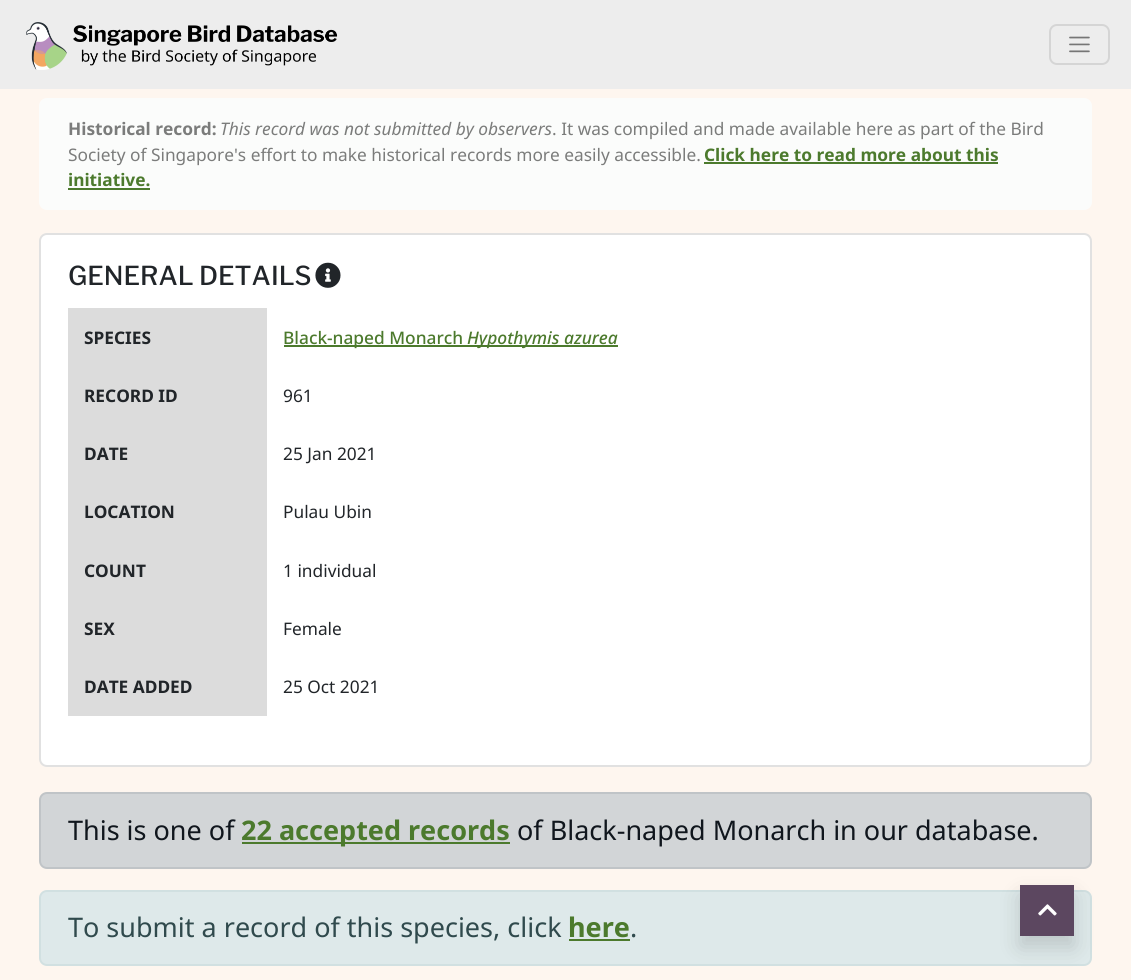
import math
import cairo


def use_color(cr, r, g, b):
  cr.set_source_rgb(r / 255, g / 255, b / 255)

def text(cr, x, y, s, family, size, color, bold=False, italic=False):
  cr.select_font_face(family, cairo.FONT_SLANT_ITALIC if italic else cairo.FONT_SLANT_NORMAL, cairo.FONT_WEIGHT_BOLD if bold else cairo.FONT_WEIGHT_NORMAL)
  cr.set_font_size(size)
  use_color(cr, *color)
  cr.move_to(x, y)
  cr.show_text(s)

def box(cr, x, y, w, h, *color):
  use_color(cr, *color)
  cr.rectangle(x, y, w, h)
  cr.fill()

def round_rect(cr, x, y, w, h, r):
  cr.new_sub_path()
  for i, (u, v) in enumerate([(x + w - r, y + h - r), (x + r, y + h - r), (x + r, y + r), (x + w - r, y + r)]):
    cr.arc(u, v, r, i * math.pi / 2, (i + 1) * math.pi / 2)
  cr.close_path()

def shadow(cr, x, y, w, h, r, blur, alpha):
  cr.push_group_with_content(cairo.CONTENT_ALPHA)
  cr.set_operator(cairo.OPERATOR_SOURCE)
  for i in range(15, -16, -2):
    e = blur * i / 6
    if min(w, h) + 2 * e > 0:
      cr.set_source_rgba(0, 0, 0, alpha * math.erfc((i - 1) / 8.5) / 2)
      round_rect(cr, x - e, y - e, w + 2 * e, h + 2 * e, max(0, min(r + e + blur * .6, min(w, h) / 2 + e)))
      cr.fill()
  cr.mask(cr.pop_group())

def picture(cr, path, x, y, w, h):
  cr.save()
  cr.set_source_surface(cairo.ImageSurface.create_from_png(path), x, y)
  cr.rectangle(x, y, w, h)
  cr.fill()
  cr.restore()

def draw(cr):
  use_color(cr, 254, 246, 239)
  cr.paint()
  box(cr, 0, 0, 1131, 89, 237, 237, 237)
  picture(cr, "img_01.png", 26, 22, 312, 48)
  round_rect(cr, 1050, 25, 59, 39, 7)
  use_color(cr, 213, 213, 213)
  cr.stroke()
  picture(cr, "img_02.png", 1069, 36, 21, 17)
  use_color(cr, 251, 252, 251)
  round_rect(cr, 39, 98, 1053, 112, 8)
  cr.fill()
  box(cr, 704, 162, 294, 2, 76, 122, 45)
  box(cr, 68, 188, 82, 2, 76, 122, 45)
  use_color(cr, 255, 255, 255)
  round_rect(cr, 39, 233, 1053, 534, 8)
  cr.fill()
  round_rect(cr, 40, 234, 1051, 532, 7)
  cr.set_source_rgba(0, 0, 0, 0.12)
  cr.stroke()
  picture(cr, "img_03.png", 315, 262, 26, 26)
  box(cr, 68, 308, 199, 408, 220, 220, 220)
  box(cr, 284, 345, 334, 2, 76, 122, 45)
  use_color(cr, 210, 213, 215)
  round_rect(cr, 40, 793, 1051, 75, 7)
  cr.fill_preserve()
  use_color(cr, 192, 196, 199)
  cr.stroke()
  box(cr, 242, 842, 268, 2, 76, 122, 45)
  use_color(cr, 222, 233, 234)
  round_rect(cr, 40, 891, 1051, 74, 7)
  cr.fill_preserve()
  use_color(cr, 209, 224, 225)
  cr.stroke()
  box(cr, 569, 939, 61, 2, 76, 122, 45)
  use_color(cr, 0, 0, 0)
  shadow(cr, 1020, 896, 54, 51, 0, 11, 0.15)
  box(cr, 1020, 885, 54, 51, 92, 71, 96)
  picture(cr, "img_04.png", 1038, 904, 19, 12)
  text(cr, 68, 135, "Historical record:", "Noto Sans", 17.3, (123, 124, 123), bold=True)
  text(cr, 220, 135, "This record was not submitted by observers", "Noto Sans", 17.3, (123, 124, 123), italic=True)
  text(cr, 552, 135, ". It was compiled and made available here as part of the Bird", "Noto Sans", 17.3, (123, 124, 123))
  text(cr, 68, 161, "Society of Singapore's effort to make historical records more easily accessible.", "Noto Sans", 17.3, (123, 124, 123))
  text(cr, 704, 161, "Click here to read more about this", "Noto Sans", 17.3, (76, 122, 45), bold=True)
  text(cr, 68, 186, "initiative.", "Noto Sans", 17.3, (76, 122, 45), bold=True)
  text(cr, 68, 285, "GENERAL DETAILS", "Libre Franklin Medium", 26, (33, 37, 41))
  text(cr, 84, 344, "SPECIES", "Noto Sans", 17.3, (33, 37, 41), bold=True)
  text(cr, 283, 344, "Black-naped Monarch", "Noto Sans Medium", 17.3, (76, 122, 45))
  text(cr, 467, 344, "Hypothymis azurea", "Noto Sans Medium", 17.3, (76, 122, 45), italic=True)
  text(cr, 84, 402, "RECORD ID", "Noto Sans", 17.3, (33, 37, 41), bold=True)
  text(cr, 283, 402, "961", "Noto Sans", 17.3, (33, 37, 41))
  text(cr, 84, 460, "DATE", "Noto Sans", 17.3, (33, 37, 41), bold=True)
  text(cr, 283, 460, "25 Jan 2021", "Noto Sans", 17.3, (33, 37, 41))
  text(cr, 84, 518, "LOCATION", "Noto Sans", 17.3, (33, 37, 41), bold=True)
  text(cr, 283, 518, "Pulau Ubin", "Noto Sans", 17.3, (33, 37, 41))
  text(cr, 84, 577, "COUNT", "Noto Sans", 17.3, (33, 37, 41), bold=True)
  text(cr, 283, 577, "1 individual", "Noto Sans", 17.3, (33, 37, 41))
  text(cr, 84, 635, "SEX", "Noto Sans", 17.3, (33, 37, 41), bold=True)
  text(cr, 283, 635, "Female", "Noto Sans", 17.3, (33, 37, 41))
  text(cr, 84, 693, "DATE ADDED", "Noto Sans", 17.3, (33, 37, 41), bold=True)
  text(cr, 283, 693, "25 Oct 2021", "Noto Sans", 17.3, (33, 37, 41))
  text(cr, 68, 840, "This is one of", "Noto Sans", 27, (16, 22, 29))
  text(cr, 241, 840, "22 accepted records", "Noto Sans", 27, (76, 122, 45), bold=True)
  text(cr, 517, 840, "of Black-naped Monarch in our database.", "Noto Sans", 27, (16, 22, 29))
  text(cr, 68, 937, "To submit a record of this species, click", "Noto Sans", 27, (48, 74, 77))
  text(cr, 568, 937, "here", "Noto Sans", 27, (76, 122, 45), bold=True)
  text(cr, 630, 937, ".", "Noto Sans", 27, (48, 74, 77))


surface = cairo.ImageSurface(cairo.FORMAT_RGB24, 1131, 980)
cr = cairo.Context(surface)
options = cairo.FontOptions()
options.set_hint_metrics(cairo.HINT_METRICS_OFF)
options.set_hint_style(cairo.HINT_STYLE_NONE)
cr.set_font_options(options)
cr.set_miter_limit(4)
draw(cr)
surface.write_to_png("out.png")
